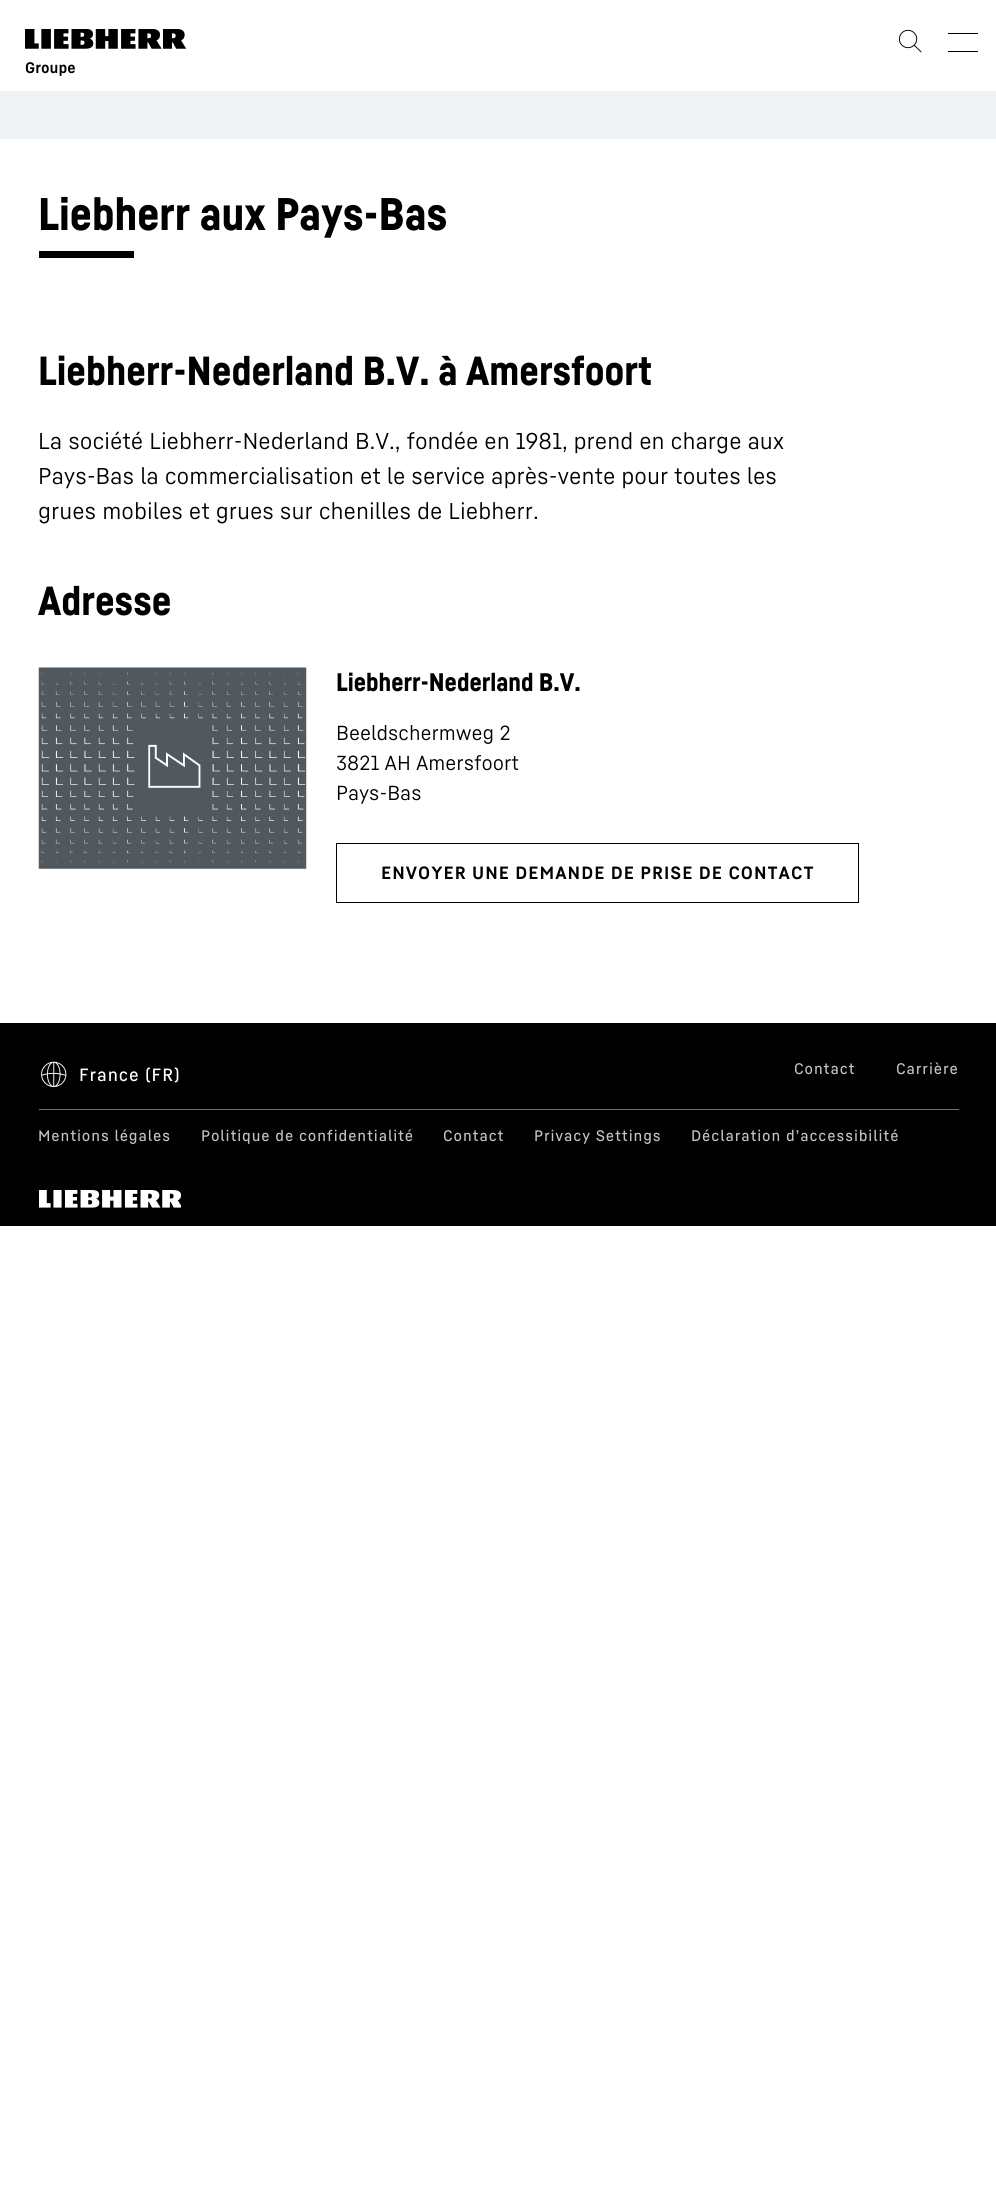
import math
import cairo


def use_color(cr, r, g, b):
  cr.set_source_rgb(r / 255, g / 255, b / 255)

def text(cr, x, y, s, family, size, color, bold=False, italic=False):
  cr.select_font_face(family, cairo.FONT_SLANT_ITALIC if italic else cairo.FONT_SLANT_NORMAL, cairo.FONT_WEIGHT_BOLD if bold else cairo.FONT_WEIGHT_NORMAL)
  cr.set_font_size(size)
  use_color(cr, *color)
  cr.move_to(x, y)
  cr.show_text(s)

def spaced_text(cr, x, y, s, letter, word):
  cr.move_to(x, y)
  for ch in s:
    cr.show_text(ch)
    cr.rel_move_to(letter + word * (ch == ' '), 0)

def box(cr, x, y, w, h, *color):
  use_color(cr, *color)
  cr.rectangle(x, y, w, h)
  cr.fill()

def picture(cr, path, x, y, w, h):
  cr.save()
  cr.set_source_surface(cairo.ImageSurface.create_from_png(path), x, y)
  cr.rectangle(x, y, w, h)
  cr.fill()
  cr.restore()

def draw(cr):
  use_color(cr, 255, 255, 255)
  cr.paint()
  picture(cr, "img_01.png", 25, 29, 161, 20)
  picture(cr, "img_02.png", 898, 29, 24, 24)
  box(cr, 948, 33, 30, 1, 0, 0, 0)
  box(cr, 948, 51, 30, 1, 0, 0, 0)
  box(cr, 0, 91, 996, 48, 240, 243, 246)
  box(cr, 39, 251, 95, 7, 0, 0, 0)
  picture(cr, "img_03.png", 38, 667, 269, 202)
  cr.rectangle(336.5, 843.5, 522, 59)
  cr.set_line_width(1)
  cr.stroke()
  box(cr, 0, 1023, 996, 203, 0, 0, 0)
  picture(cr, "img_04.png", 41, 1061, 26, 26)
  box(cr, 39, 1109, 920, 1, 107, 114, 120)
  picture(cr, "img_05.png", 39, 1190, 142, 18)
  text(cr, 25, 73, "Groupe", "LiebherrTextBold", 15, (0, 0, 0), bold=True)
  text(cr, 38, 230, "Liebherr aux Pays-Bas", "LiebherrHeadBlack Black", 45, (0, 0, 0))
  text(cr, 38, 385, "Liebherr-Nederland B.V. à Amersfoort", "LiebherrHeadBlack Black", 40, (0, 0, 0))
  text(cr, 38, 449, "La société Liebherr-Nederland B.V., fondée en 1981, prend en charge aux", "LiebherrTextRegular", 22.5, (0, 0, 0))
  text(cr, 38, 484, "Pays-Bas la commercialisation et le service après-vente pour toutes les", "LiebherrTextRegular", 22.5, (0, 0, 0))
  text(cr, 38, 519, "grues mobiles et grues sur chenilles de Liebherr.", "LiebherrTextRegular", 22.5, (0, 0, 0))
  text(cr, 38, 615, "Adresse", "LiebherrHeadBlack Black", 40, (0, 0, 0))
  text(cr, 336, 691, "Liebherr-Nederland B.V.", "LiebherrHeadBlack Black", 25, (0, 0, 0))
  text(cr, 336, 740, "Beeldschermweg 2", "LiebherrTextRegular", 20, (0, 0, 0))
  text(cr, 336, 770, "3821 AH Amersfoort", "LiebherrTextRegular", 20, (0, 0, 0))
  text(cr, 336, 800, "Pays-Bas", "LiebherrTextRegular", 20, (0, 0, 0))
  cr.select_font_face("LiebherrTextBold", cairo.FONT_SLANT_NORMAL, cairo.FONT_WEIGHT_BOLD)
  cr.set_font_size(17.5)
  spaced_text(cr, 381, 879, "ENVOYER UNE DEMANDE DE PRISE DE CONTACT", 1, 0)
  cr.select_font_face("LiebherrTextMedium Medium")
  use_color(cr, 255, 255, 255)
  spaced_text(cr, 79, 1081, "France (FR)", 0.9, 0)
  cr.set_font_size(15)
  use_color(cr, 189, 196, 202)
  spaced_text(cr, 794, 1074, "Contact", 0.9, 0)
  spaced_text(cr, 896, 1074, "Carrière", 0.9, 0)
  spaced_text(cr, 38, 1141, "Mentions légales", 0.9, 0)
  spaced_text(cr, 201, 1141, "Politique de confidentialité", 0.9, 0)
  spaced_text(cr, 443, 1141, "Contact", 0.9, 0)
  spaced_text(cr, 534, 1141, "Privacy Settings", 0.9, 0)
  spaced_text(cr, 691, 1141, "Déclaration d’accessibilité", 0.9, 0)


surface = cairo.ImageSurface(cairo.FORMAT_RGB24, 996, 2191)
cr = cairo.Context(surface)
options = cairo.FontOptions()
options.set_hint_metrics(cairo.HINT_METRICS_OFF)
options.set_hint_style(cairo.HINT_STYLE_NONE)
cr.set_font_options(options)
cr.set_miter_limit(4)
draw(cr)
surface.write_to_png("out.png")
